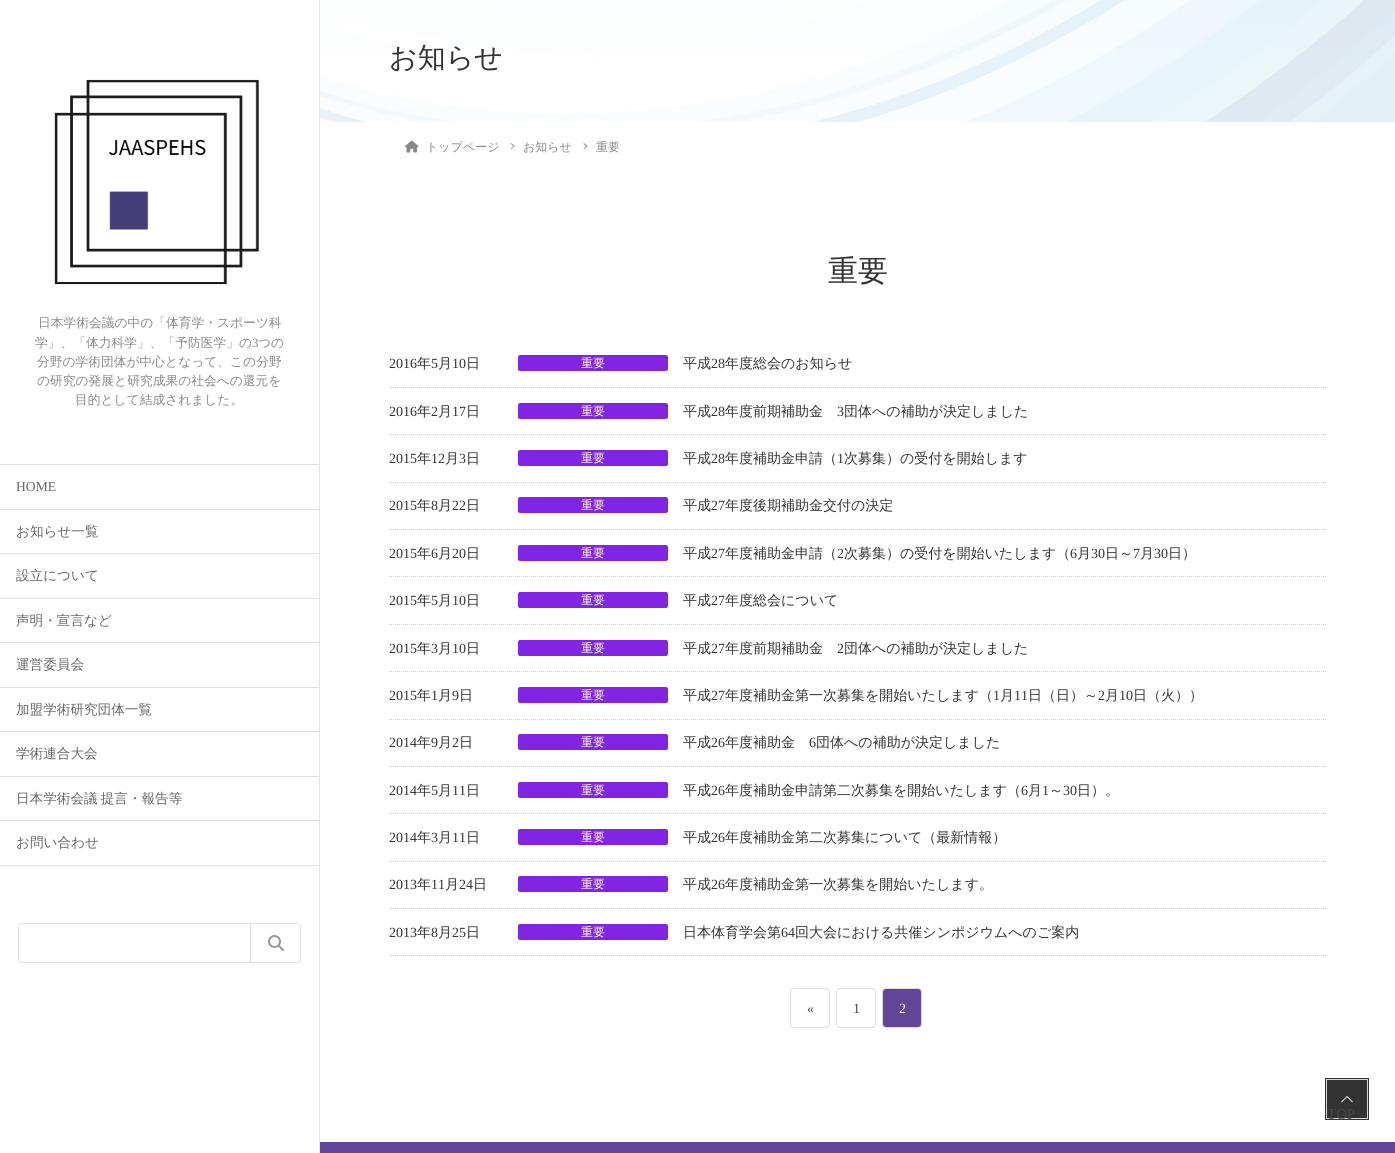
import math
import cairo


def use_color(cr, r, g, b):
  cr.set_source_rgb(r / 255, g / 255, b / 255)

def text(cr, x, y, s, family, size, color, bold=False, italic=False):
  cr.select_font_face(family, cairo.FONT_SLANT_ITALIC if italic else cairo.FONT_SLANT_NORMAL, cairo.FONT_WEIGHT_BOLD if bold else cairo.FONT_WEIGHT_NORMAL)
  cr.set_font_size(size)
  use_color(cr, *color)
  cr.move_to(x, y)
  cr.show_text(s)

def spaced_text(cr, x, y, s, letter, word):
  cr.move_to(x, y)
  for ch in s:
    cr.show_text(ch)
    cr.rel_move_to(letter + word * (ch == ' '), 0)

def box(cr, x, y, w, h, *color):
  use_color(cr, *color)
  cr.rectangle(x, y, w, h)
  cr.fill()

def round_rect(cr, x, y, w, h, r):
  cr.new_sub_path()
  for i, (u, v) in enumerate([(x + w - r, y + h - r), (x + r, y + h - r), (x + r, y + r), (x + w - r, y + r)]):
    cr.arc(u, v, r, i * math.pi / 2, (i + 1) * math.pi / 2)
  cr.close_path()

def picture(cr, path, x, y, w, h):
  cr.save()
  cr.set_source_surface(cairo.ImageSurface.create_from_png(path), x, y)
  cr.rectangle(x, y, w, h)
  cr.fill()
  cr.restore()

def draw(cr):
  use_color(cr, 255, 255, 255)
  cr.paint()
  box(cr, 319, 0, 1, 1153, 229, 229, 229)
  picture(cr, "img_01.png", 54, 79, 205, 206)
  box(cr, 0, 464, 319, 1, 224, 224, 224)
  box(cr, 0, 509, 319, 1, 224, 224, 224)
  box(cr, 0, 553, 319, 1, 224, 224, 224)
  box(cr, 0, 598, 319, 1, 224, 224, 224)
  box(cr, 0, 642, 319, 1, 224, 224, 224)
  box(cr, 0, 687, 319, 1, 224, 224, 224)
  box(cr, 0, 731, 319, 1, 224, 224, 224)
  box(cr, 0, 776, 319, 1, 224, 224, 224)
  box(cr, 0, 820, 319, 1, 224, 224, 224)
  box(cr, 0, 865, 319, 1, 224, 224, 224)
  round_rect(cr, 18.5, 923.5, 282, 39, 3.5)
  cr.set_line_width(1)
  cr.stroke()
  cr.set_source_rgba(0, 0, 0, 0.12)
  cr.rectangle(250, 923, 1, 40)
  cr.fill()
  picture(cr, "img_02.png", 268, 935, 16, 16)
  picture(cr, "img_03.png", 320, 0, 1075, 122)
  picture(cr, "img_04.png", 405, 140, 14, 13)
  use_color(cr, 136, 136, 136)
  cr.new_path()
  cr.move_to(511, 143)
  cr.line_to(514.5, 146)
  cr.line_to(514, 147)
  cr.line_to(510.5, 143.5)
  cr.close_path()
  cr.fill()
  cr.new_path()
  cr.move_to(514, 145.5)
  cr.line_to(514.5, 146)
  cr.line_to(511, 149.5)
  cr.line_to(510.5, 149)
  cr.close_path()
  cr.fill()
  cr.new_path()
  cr.move_to(584, 143)
  cr.line_to(587.5, 146)
  cr.line_to(586.5, 147)
  cr.line_to(583.5, 143.5)
  cr.close_path()
  cr.fill()
  cr.new_path()
  cr.move_to(586.5, 145.5)
  cr.line_to(587.5, 146)
  cr.line_to(584, 149.5)
  cr.line_to(583.5, 149)
  cr.close_path()
  cr.fill()
  cr.new_path()
  cr.move_to(389, 387.5)
  cr.line_to(1326, 387.5)
  use_color(cr, 204, 204, 204)
  cr.set_dash([1, 1])
  cr.stroke()
  use_color(cr, 130, 36, 227)
  round_rect(cr, 518, 355, 150, 16, 2)
  cr.fill()
  cr.new_path()
  cr.move_to(389, 434.5)
  cr.line_to(1326, 434.5)
  use_color(cr, 204, 204, 204)
  cr.stroke()
  use_color(cr, 130, 36, 227)
  round_rect(cr, 518, 403, 150, 16, 2)
  cr.fill()
  cr.new_path()
  cr.move_to(389, 482.5)
  cr.line_to(1326, 482.5)
  use_color(cr, 204, 204, 204)
  cr.stroke()
  use_color(cr, 130, 36, 227)
  round_rect(cr, 518, 450, 150, 16, 2)
  cr.fill()
  cr.new_path()
  cr.move_to(389, 529.5)
  cr.line_to(1326, 529.5)
  use_color(cr, 204, 204, 204)
  cr.stroke()
  use_color(cr, 130, 36, 227)
  round_rect(cr, 518, 497, 150, 16, 2)
  cr.fill()
  cr.new_path()
  cr.move_to(389, 576.5)
  cr.line_to(1326, 576.5)
  use_color(cr, 204, 204, 204)
  cr.stroke()
  use_color(cr, 130, 36, 227)
  round_rect(cr, 518, 545, 150, 16, 2)
  cr.fill()
  cr.new_path()
  cr.move_to(389, 624.5)
  cr.line_to(1326, 624.5)
  use_color(cr, 204, 204, 204)
  cr.stroke()
  use_color(cr, 130, 36, 227)
  round_rect(cr, 518, 592, 150, 16, 2)
  cr.fill()
  cr.new_path()
  cr.move_to(389, 671.5)
  cr.line_to(1326, 671.5)
  use_color(cr, 204, 204, 204)
  cr.stroke()
  use_color(cr, 130, 36, 227)
  round_rect(cr, 518, 640, 150, 16, 2)
  cr.fill()
  cr.new_path()
  cr.move_to(389, 719.5)
  cr.line_to(1326, 719.5)
  use_color(cr, 204, 204, 204)
  cr.stroke()
  use_color(cr, 130, 36, 227)
  round_rect(cr, 518, 687, 150, 16, 2)
  cr.fill()
  cr.new_path()
  cr.move_to(389, 766.5)
  cr.line_to(1326, 766.5)
  use_color(cr, 204, 204, 204)
  cr.stroke()
  use_color(cr, 130, 36, 227)
  round_rect(cr, 518, 734, 150, 16, 2)
  cr.fill()
  cr.new_path()
  cr.move_to(389, 813.5)
  cr.line_to(1326, 813.5)
  use_color(cr, 204, 204, 204)
  cr.stroke()
  use_color(cr, 130, 36, 227)
  round_rect(cr, 518, 782, 150, 16, 2)
  cr.fill()
  cr.new_path()
  cr.move_to(389, 861.5)
  cr.line_to(1326, 861.5)
  use_color(cr, 204, 204, 204)
  cr.stroke()
  use_color(cr, 130, 36, 227)
  round_rect(cr, 518, 829, 150, 16, 2)
  cr.fill()
  cr.new_path()
  cr.move_to(389, 908.5)
  cr.line_to(1326, 908.5)
  use_color(cr, 204, 204, 204)
  cr.stroke()
  use_color(cr, 130, 36, 227)
  round_rect(cr, 518, 876, 150, 16, 2)
  cr.fill()
  cr.new_path()
  cr.move_to(389, 955.5)
  cr.line_to(1326, 955.5)
  use_color(cr, 204, 204, 204)
  cr.stroke()
  use_color(cr, 130, 36, 227)
  round_rect(cr, 518, 924, 150, 16, 2)
  cr.fill()
  round_rect(cr, 790.5, 988.5, 39, 39, 3.5)
  use_color(cr, 221, 221, 221)
  cr.set_dash([])
  cr.stroke()
  round_rect(cr, 836.5, 988.5, 39, 39, 3.5)
  cr.stroke()
  use_color(cr, 98, 68, 152)
  round_rect(cr, 882.5, 988.5, 39, 39, 3.5)
  cr.fill_preserve()
  use_color(cr, 221, 221, 221)
  cr.stroke()
  box(cr, 320, 1142, 1075, 11, 98, 68, 152)
  cr.rectangle(1326, 1079, 42, 40)
  use_color(cr, 51, 51, 51)
  cr.set_line_width(2)
  cr.stroke()
  cr.rectangle(1326.5, 1079.5, 41, 39)
  use_color(cr, 214, 214, 214)
  cr.set_line_width(1)
  cr.stroke()
  box(cr, 1327, 1080, 40, 38, 51, 51, 51)
  picture(cr, "img_05.png", 1341, 1096, 12, 7)
  text(cr, 38, 327, "日本学術会議の中の「体育学・スポーツ科", "WenQuanYi Zen Hei Medium", 12.75, (136, 136, 136))
  text(cr, 35, 347, "学」、「体力科学」、「予防医学」の", "WenQuanYi Zen Hei Medium", 12.75, (136, 136, 136))
  text(cr, 252, 347, "3", "Liberation Serif", 12.75, (136, 136, 136))
  text(cr, 258, 347, "つの", "WenQuanYi Zen Hei Medium", 12.75, (136, 136, 136))
  text(cr, 37, 366, "分野の学術団体が中心となって、この分野", "WenQuanYi Zen Hei Medium", 12.75, (136, 136, 136))
  text(cr, 37, 385, "の研究の発展と研究成果の社会への還元を", "WenQuanYi Zen Hei Medium", 12.75, (136, 136, 136))
  text(cr, 75, 404, "目的として結成されました。", "WenQuanYi Zen Hei Medium", 12.75, (136, 136, 136))
  text(cr, 16, 491, "HOME", "Liberation Serif", 13.6, (102, 102, 102))
  text(cr, 16, 536, "お知らせ一覧", "WenQuanYi Zen Hei Medium", 13.6, (102, 102, 102))
  text(cr, 16, 580, "設立について", "WenQuanYi Zen Hei Medium", 13.6, (102, 102, 102))
  text(cr, 16, 625, "声明・宣言など", "WenQuanYi Zen Hei Medium", 13.6, (102, 102, 102))
  text(cr, 16, 669, "運営委員会", "WenQuanYi Zen Hei Medium", 13.6, (102, 102, 102))
  text(cr, 16, 714, "加盟学術研究団体一覧", "WenQuanYi Zen Hei Medium", 13.6, (102, 102, 102))
  text(cr, 16, 758, "学術連合大会", "WenQuanYi Zen Hei Medium", 13.6, (102, 102, 102))
  spaced_text(cr, 16, 803, "日本学術会議 提言・報告等", 0, -1)
  text(cr, 16, 847, "お問い合わせ", "WenQuanYi Zen Hei Medium", 13.6, (102, 102, 102))
  text(cr, 389, 67, "お知らせ", "WenQuanYi Zen Hei Medium", 28, (51, 51, 51))
  text(cr, 426, 151, "トップページ", "WenQuanYi Zen Hei Medium", 12, (136, 136, 136))
  text(cr, 523, 151, "お知らせ", "WenQuanYi Zen Hei Medium", 12, (136, 136, 136))
  text(cr, 596, 151, "重要", "WenQuanYi Zen Hei Medium", 12, (136, 136, 136))
  text(cr, 828, 281, "重要", "WenQuanYi Zen Hei Medium", 30, (51, 51, 51))
  text(cr, 389, 368, "2016", "Liberation Serif", 14, (51, 51, 51))
  text(cr, 417, 368, "年", "WenQuanYi Zen Hei Medium", 14, (51, 51, 51))
  text(cr, 431, 368, "5", "Liberation Serif", 14, (51, 51, 51))
  text(cr, 438, 368, "月", "WenQuanYi Zen Hei Medium", 14, (51, 51, 51))
  text(cr, 452, 368, "10", "Liberation Serif", 14, (51, 51, 51))
  text(cr, 466, 368, "日", "WenQuanYi Zen Hei Medium", 14, (51, 51, 51))
  text(cr, 581, 367, "重要", "WenQuanYi Zen Hei Medium", 12, (255, 255, 255))
  text(cr, 683, 368, "平成", "WenQuanYi Zen Hei Medium", 14, (51, 51, 51))
  text(cr, 711, 368, "28", "Liberation Serif", 14, (51, 51, 51))
  text(cr, 725, 368, "年度総会のお知らせ", "WenQuanYi Zen Hei Medium", 14, (51, 51, 51))
  text(cr, 389, 416, "2016", "Liberation Serif", 14, (51, 51, 51))
  text(cr, 417, 416, "年", "WenQuanYi Zen Hei Medium", 14, (51, 51, 51))
  text(cr, 431, 416, "2", "Liberation Serif", 14, (51, 51, 51))
  text(cr, 438, 416, "月", "WenQuanYi Zen Hei Medium", 14, (51, 51, 51))
  text(cr, 452, 416, "17", "Liberation Serif", 14, (51, 51, 51))
  text(cr, 466, 416, "日", "WenQuanYi Zen Hei Medium", 14, (51, 51, 51))
  text(cr, 581, 415, "重要", "WenQuanYi Zen Hei Medium", 12, (255, 255, 255))
  text(cr, 683, 416, "平成", "WenQuanYi Zen Hei Medium", 14, (51, 51, 51))
  text(cr, 711, 416, "28", "Liberation Serif", 14, (51, 51, 51))
  text(cr, 725, 416, "年度前期補助金", "WenQuanYi Zen Hei Medium", 14, (51, 51, 51))
  text(cr, 837, 416, "3", "Liberation Serif", 14, (51, 51, 51))
  text(cr, 844, 416, "団体への補助が決定しました", "WenQuanYi Zen Hei Medium", 14, (51, 51, 51))
  text(cr, 389, 463, "2015", "Liberation Serif", 14, (51, 51, 51))
  text(cr, 417, 463, "年", "WenQuanYi Zen Hei Medium", 14, (51, 51, 51))
  text(cr, 431, 463, "12", "Liberation Serif", 14, (51, 51, 51))
  text(cr, 445, 463, "月", "WenQuanYi Zen Hei Medium", 14, (51, 51, 51))
  text(cr, 459, 463, "3", "Liberation Serif", 14, (51, 51, 51))
  text(cr, 466, 463, "日", "WenQuanYi Zen Hei Medium", 14, (51, 51, 51))
  text(cr, 581, 462, "重要", "WenQuanYi Zen Hei Medium", 12, (255, 255, 255))
  text(cr, 683, 463, "平成", "WenQuanYi Zen Hei Medium", 14, (51, 51, 51))
  text(cr, 711, 463, "28", "Liberation Serif", 14, (51, 51, 51))
  text(cr, 725, 463, "年度補助金申請（", "WenQuanYi Zen Hei Medium", 14, (51, 51, 51))
  text(cr, 837, 463, "1", "Liberation Serif", 14, (51, 51, 51))
  text(cr, 844, 463, "次募集）の受付を開始します", "WenQuanYi Zen Hei Medium", 14, (51, 51, 51))
  text(cr, 389, 510, "2015", "Liberation Serif", 14, (51, 51, 51))
  text(cr, 417, 510, "年", "WenQuanYi Zen Hei Medium", 14, (51, 51, 51))
  text(cr, 431, 510, "8", "Liberation Serif", 14, (51, 51, 51))
  text(cr, 438, 510, "月", "WenQuanYi Zen Hei Medium", 14, (51, 51, 51))
  text(cr, 452, 510, "22", "Liberation Serif", 14, (51, 51, 51))
  text(cr, 466, 510, "日", "WenQuanYi Zen Hei Medium", 14, (51, 51, 51))
  text(cr, 581, 509, "重要", "WenQuanYi Zen Hei Medium", 12, (255, 255, 255))
  text(cr, 683, 510, "平成", "WenQuanYi Zen Hei Medium", 14, (51, 51, 51))
  text(cr, 711, 510, "27", "Liberation Serif", 14, (51, 51, 51))
  text(cr, 725, 510, "年度後期補助金交付の決定", "WenQuanYi Zen Hei Medium", 14, (51, 51, 51))
  text(cr, 389, 558, "2015", "Liberation Serif", 14, (51, 51, 51))
  text(cr, 417, 558, "年", "WenQuanYi Zen Hei Medium", 14, (51, 51, 51))
  text(cr, 431, 558, "6", "Liberation Serif", 14, (51, 51, 51))
  text(cr, 438, 558, "月", "WenQuanYi Zen Hei Medium", 14, (51, 51, 51))
  text(cr, 452, 558, "20", "Liberation Serif", 14, (51, 51, 51))
  text(cr, 466, 558, "日", "WenQuanYi Zen Hei Medium", 14, (51, 51, 51))
  text(cr, 581, 557, "重要", "WenQuanYi Zen Hei Medium", 12, (255, 255, 255))
  text(cr, 683, 558, "平成", "WenQuanYi Zen Hei Medium", 14, (51, 51, 51))
  text(cr, 711, 558, "27", "Liberation Serif", 14, (51, 51, 51))
  text(cr, 725, 558, "年度補助金申請（", "WenQuanYi Zen Hei Medium", 14, (51, 51, 51))
  text(cr, 837, 558, "2", "Liberation Serif", 14, (51, 51, 51))
  text(cr, 844, 558, "次募集）の受付を開始いたします（", "WenQuanYi Zen Hei Medium", 14, (51, 51, 51))
  text(cr, 1070, 558, "6", "Liberation Serif", 14, (51, 51, 51))
  text(cr, 1077, 558, "月", "WenQuanYi Zen Hei Medium", 14, (51, 51, 51))
  text(cr, 1091, 558, "30", "Liberation Serif", 14, (51, 51, 51))
  text(cr, 1105, 558, "日～", "WenQuanYi Zen Hei Medium", 14, (51, 51, 51))
  text(cr, 1133, 558, "7", "Liberation Serif", 14, (51, 51, 51))
  text(cr, 1140, 558, "月", "WenQuanYi Zen Hei Medium", 14, (51, 51, 51))
  text(cr, 1154, 558, "30", "Liberation Serif", 14, (51, 51, 51))
  text(cr, 1168, 558, "日）", "WenQuanYi Zen Hei Medium", 14, (51, 51, 51))
  text(cr, 389, 605, "2015", "Liberation Serif", 14, (51, 51, 51))
  text(cr, 417, 605, "年", "WenQuanYi Zen Hei Medium", 14, (51, 51, 51))
  text(cr, 431, 605, "5", "Liberation Serif", 14, (51, 51, 51))
  text(cr, 438, 605, "月", "WenQuanYi Zen Hei Medium", 14, (51, 51, 51))
  text(cr, 452, 605, "10", "Liberation Serif", 14, (51, 51, 51))
  text(cr, 466, 605, "日", "WenQuanYi Zen Hei Medium", 14, (51, 51, 51))
  text(cr, 581, 604, "重要", "WenQuanYi Zen Hei Medium", 12, (255, 255, 255))
  text(cr, 683, 605, "平成", "WenQuanYi Zen Hei Medium", 14, (51, 51, 51))
  text(cr, 711, 605, "27", "Liberation Serif", 14, (51, 51, 51))
  text(cr, 725, 605, "年度総会について", "WenQuanYi Zen Hei Medium", 14, (51, 51, 51))
  text(cr, 389, 653, "2015", "Liberation Serif", 14, (51, 51, 51))
  text(cr, 417, 653, "年", "WenQuanYi Zen Hei Medium", 14, (51, 51, 51))
  text(cr, 431, 653, "3", "Liberation Serif", 14, (51, 51, 51))
  text(cr, 438, 653, "月", "WenQuanYi Zen Hei Medium", 14, (51, 51, 51))
  text(cr, 452, 653, "10", "Liberation Serif", 14, (51, 51, 51))
  text(cr, 466, 653, "日", "WenQuanYi Zen Hei Medium", 14, (51, 51, 51))
  text(cr, 581, 652, "重要", "WenQuanYi Zen Hei Medium", 12, (255, 255, 255))
  text(cr, 683, 653, "平成", "WenQuanYi Zen Hei Medium", 14, (51, 51, 51))
  text(cr, 711, 653, "27", "Liberation Serif", 14, (51, 51, 51))
  text(cr, 725, 653, "年度前期補助金", "WenQuanYi Zen Hei Medium", 14, (51, 51, 51))
  text(cr, 837, 653, "2", "Liberation Serif", 14, (51, 51, 51))
  text(cr, 844, 653, "団体への補助が決定しました", "WenQuanYi Zen Hei Medium", 14, (51, 51, 51))
  text(cr, 389, 700, "2015", "Liberation Serif", 14, (51, 51, 51))
  text(cr, 417, 700, "年", "WenQuanYi Zen Hei Medium", 14, (51, 51, 51))
  text(cr, 431, 700, "1", "Liberation Serif", 14, (51, 51, 51))
  text(cr, 438, 700, "月", "WenQuanYi Zen Hei Medium", 14, (51, 51, 51))
  text(cr, 452, 700, "9", "Liberation Serif", 14, (51, 51, 51))
  text(cr, 459, 700, "日", "WenQuanYi Zen Hei Medium", 14, (51, 51, 51))
  text(cr, 581, 699, "重要", "WenQuanYi Zen Hei Medium", 12, (255, 255, 255))
  text(cr, 683, 700, "平成", "WenQuanYi Zen Hei Medium", 14, (51, 51, 51))
  text(cr, 711, 700, "27", "Liberation Serif", 14, (51, 51, 51))
  text(cr, 725, 700, "年度補助金第一次募集を開始いたします（", "WenQuanYi Zen Hei Medium", 14, (51, 51, 51))
  text(cr, 993, 700, "1", "Liberation Serif", 14, (51, 51, 51))
  text(cr, 1000, 700, "月", "WenQuanYi Zen Hei Medium", 14, (51, 51, 51))
  text(cr, 1014, 700, "11", "Liberation Serif", 14, (51, 51, 51))
  text(cr, 1028, 700, "日（日）～", "WenQuanYi Zen Hei Medium", 14, (51, 51, 51))
  text(cr, 1098, 700, "2", "Liberation Serif", 14, (51, 51, 51))
  text(cr, 1105, 700, "月", "WenQuanYi Zen Hei Medium", 14, (51, 51, 51))
  text(cr, 1119, 700, "10", "Liberation Serif", 14, (51, 51, 51))
  text(cr, 1133, 700, "日（火））", "WenQuanYi Zen Hei Medium", 14, (51, 51, 51))
  text(cr, 389, 747, "2014", "Liberation Serif", 14, (51, 51, 51))
  text(cr, 417, 747, "年", "WenQuanYi Zen Hei Medium", 14, (51, 51, 51))
  text(cr, 431, 747, "9", "Liberation Serif", 14, (51, 51, 51))
  text(cr, 438, 747, "月", "WenQuanYi Zen Hei Medium", 14, (51, 51, 51))
  text(cr, 452, 747, "2", "Liberation Serif", 14, (51, 51, 51))
  text(cr, 459, 747, "日", "WenQuanYi Zen Hei Medium", 14, (51, 51, 51))
  text(cr, 581, 746, "重要", "WenQuanYi Zen Hei Medium", 12, (255, 255, 255))
  text(cr, 683, 747, "平成", "WenQuanYi Zen Hei Medium", 14, (51, 51, 51))
  text(cr, 711, 747, "26", "Liberation Serif", 14, (51, 51, 51))
  text(cr, 725, 747, "年度補助金", "WenQuanYi Zen Hei Medium", 14, (51, 51, 51))
  text(cr, 809, 747, "6", "Liberation Serif", 14, (51, 51, 51))
  text(cr, 816, 747, "団体への補助が決定しました", "WenQuanYi Zen Hei Medium", 14, (51, 51, 51))
  text(cr, 389, 795, "2014", "Liberation Serif", 14, (51, 51, 51))
  text(cr, 417, 795, "年", "WenQuanYi Zen Hei Medium", 14, (51, 51, 51))
  text(cr, 431, 795, "5", "Liberation Serif", 14, (51, 51, 51))
  text(cr, 438, 795, "月", "WenQuanYi Zen Hei Medium", 14, (51, 51, 51))
  text(cr, 452, 795, "11", "Liberation Serif", 14, (51, 51, 51))
  text(cr, 466, 795, "日", "WenQuanYi Zen Hei Medium", 14, (51, 51, 51))
  text(cr, 581, 794, "重要", "WenQuanYi Zen Hei Medium", 12, (255, 255, 255))
  text(cr, 683, 795, "平成", "WenQuanYi Zen Hei Medium", 14, (51, 51, 51))
  text(cr, 711, 795, "26", "Liberation Serif", 14, (51, 51, 51))
  text(cr, 725, 795, "年度補助金申請第二次募集を開始いたします（", "WenQuanYi Zen Hei Medium", 14, (51, 51, 51))
  text(cr, 1021, 795, "6", "Liberation Serif", 14, (51, 51, 51))
  text(cr, 1028, 795, "月", "WenQuanYi Zen Hei Medium", 14, (51, 51, 51))
  text(cr, 1042, 795, "1", "Liberation Serif", 14, (51, 51, 51))
  text(cr, 1049, 795, "～", "WenQuanYi Zen Hei Medium", 14, (51, 51, 51))
  text(cr, 1063, 795, "30", "Liberation Serif", 14, (51, 51, 51))
  text(cr, 1077, 795, "日）。", "WenQuanYi Zen Hei Medium", 14, (51, 51, 51))
  text(cr, 389, 842, "2014", "Liberation Serif", 14, (51, 51, 51))
  text(cr, 417, 842, "年", "WenQuanYi Zen Hei Medium", 14, (51, 51, 51))
  text(cr, 431, 842, "3", "Liberation Serif", 14, (51, 51, 51))
  text(cr, 438, 842, "月", "WenQuanYi Zen Hei Medium", 14, (51, 51, 51))
  text(cr, 452, 842, "11", "Liberation Serif", 14, (51, 51, 51))
  text(cr, 466, 842, "日", "WenQuanYi Zen Hei Medium", 14, (51, 51, 51))
  text(cr, 581, 841, "重要", "WenQuanYi Zen Hei Medium", 12, (255, 255, 255))
  text(cr, 683, 842, "平成", "WenQuanYi Zen Hei Medium", 14, (51, 51, 51))
  text(cr, 711, 842, "26", "Liberation Serif", 14, (51, 51, 51))
  text(cr, 725, 842, "年度補助金第二次募集について（最新情報）", "WenQuanYi Zen Hei Medium", 14, (51, 51, 51))
  text(cr, 389, 889, "2013", "Liberation Serif", 14, (51, 51, 51))
  text(cr, 417, 889, "年", "WenQuanYi Zen Hei Medium", 14, (51, 51, 51))
  text(cr, 431, 889, "11", "Liberation Serif", 14, (51, 51, 51))
  text(cr, 445, 889, "月", "WenQuanYi Zen Hei Medium", 14, (51, 51, 51))
  text(cr, 459, 889, "24", "Liberation Serif", 14, (51, 51, 51))
  text(cr, 473, 889, "日", "WenQuanYi Zen Hei Medium", 14, (51, 51, 51))
  text(cr, 581, 888, "重要", "WenQuanYi Zen Hei Medium", 12, (255, 255, 255))
  text(cr, 683, 889, "平成", "WenQuanYi Zen Hei Medium", 14, (51, 51, 51))
  text(cr, 711, 889, "26", "Liberation Serif", 14, (51, 51, 51))
  text(cr, 725, 889, "年度補助金第一次募集を開始いたします。", "WenQuanYi Zen Hei Medium", 14, (51, 51, 51))
  text(cr, 389, 937, "2013", "Liberation Serif", 14, (51, 51, 51))
  text(cr, 417, 937, "年", "WenQuanYi Zen Hei Medium", 14, (51, 51, 51))
  text(cr, 431, 937, "8", "Liberation Serif", 14, (51, 51, 51))
  text(cr, 438, 937, "月", "WenQuanYi Zen Hei Medium", 14, (51, 51, 51))
  text(cr, 452, 937, "25", "Liberation Serif", 14, (51, 51, 51))
  text(cr, 466, 937, "日", "WenQuanYi Zen Hei Medium", 14, (51, 51, 51))
  text(cr, 581, 936, "重要", "WenQuanYi Zen Hei Medium", 12, (255, 255, 255))
  text(cr, 683, 937, "日本体育学会第", "WenQuanYi Zen Hei Medium", 14, (51, 51, 51))
  text(cr, 781, 937, "64", "Liberation Serif", 14, (51, 51, 51))
  text(cr, 795, 937, "回大会における共催シンポジウムへのご案内", "WenQuanYi Zen Hei Medium", 14, (51, 51, 51))
  text(cr, 807, 1013, "«", "Liberation Serif", 14, (70, 70, 70))
  text(cr, 853, 1013, "1", "Liberation Serif", 14, (70, 70, 70))
  text(cr, 899, 1013, "2", "Liberation Serif", 14, (255, 255, 255))
  text(cr, 1327, 1119, "TOP", "Liberation Serif", 15, (70, 70, 70))


surface = cairo.ImageSurface(cairo.FORMAT_RGB24, 1395, 1153)
cr = cairo.Context(surface)
options = cairo.FontOptions()
options.set_hint_metrics(cairo.HINT_METRICS_OFF)
options.set_hint_style(cairo.HINT_STYLE_NONE)
cr.set_font_options(options)
cr.set_miter_limit(4)
draw(cr)
surface.write_to_png("out.png")
